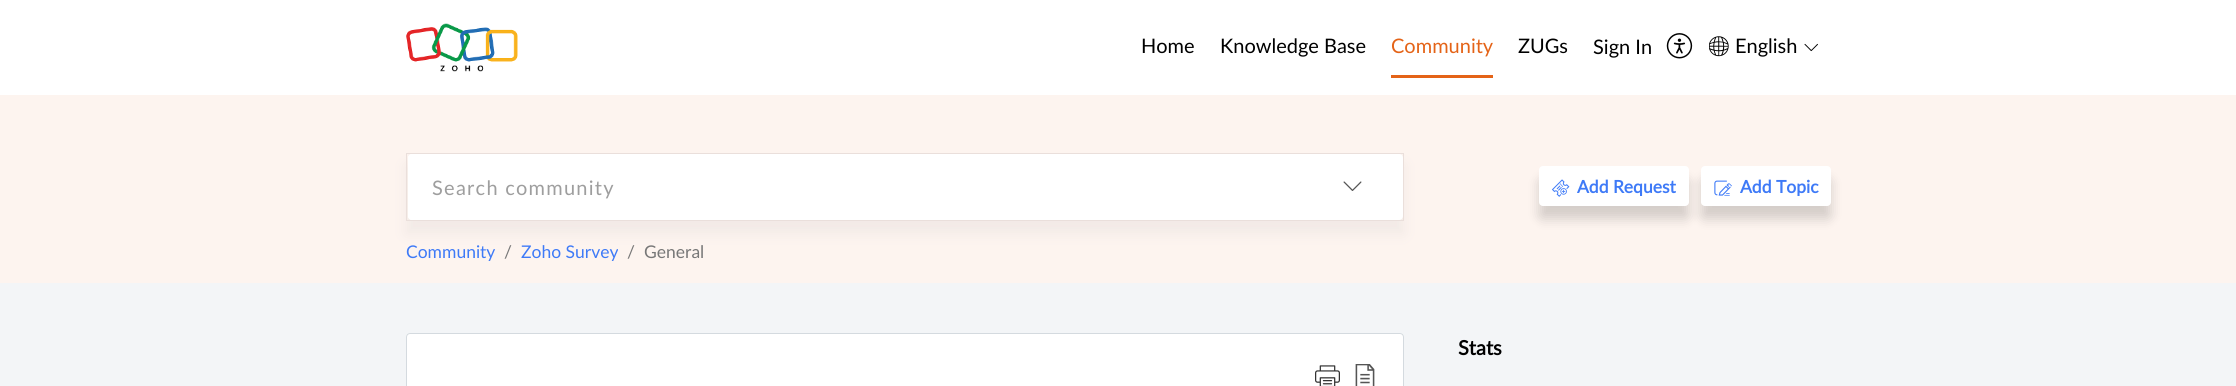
import math
import cairo


def use_color(cr, r, g, b):
  cr.set_source_rgb(r / 255, g / 255, b / 255)

def text(cr, x, y, s, family, size, color, bold=False, italic=False):
  cr.select_font_face(family, cairo.FONT_SLANT_ITALIC if italic else cairo.FONT_SLANT_NORMAL, cairo.FONT_WEIGHT_BOLD if bold else cairo.FONT_WEIGHT_NORMAL)
  cr.set_font_size(size)
  use_color(cr, *color)
  cr.move_to(x, y)
  cr.show_text(s)

def spaced_text(cr, x, y, s, letter, word):
  cr.move_to(x, y)
  for ch in s:
    cr.show_text(ch)
    cr.rel_move_to(letter + word * (ch == ' '), 0)

def box(cr, x, y, w, h, *color):
  use_color(cr, *color)
  cr.rectangle(x, y, w, h)
  cr.fill()

def round_rect(cr, x, y, w, h, r):
  cr.new_sub_path()
  for i, (u, v) in enumerate([(x + w - r, y + h - r), (x + r, y + h - r), (x + r, y + r), (x + w - r, y + r)]):
    cr.arc(u, v, r, i * math.pi / 2, (i + 1) * math.pi / 2)
  cr.close_path()

def shadow(cr, x, y, w, h, r, blur, alpha):
  cr.push_group_with_content(cairo.CONTENT_ALPHA)
  cr.set_operator(cairo.OPERATOR_SOURCE)
  for i in range(15, -16, -2):
    e = blur * i / 6
    if min(w, h) + 2 * e > 0:
      cr.set_source_rgba(0, 0, 0, alpha * math.erfc((i - 1) / 8.5) / 2)
      round_rect(cr, x - e, y - e, w + 2 * e, h + 2 * e, max(0, min(r + e + blur * .6, min(w, h) / 2 + e)))
      cr.fill()
  cr.mask(cr.pop_group())

def picture(cr, path, x, y, w, h):
  cr.save()
  cr.set_source_surface(cairo.ImageSurface.create_from_png(path), x, y)
  cr.rectangle(x, y, w, h)
  cr.fill()
  cr.restore()

def draw(cr):
  use_color(cr, 243, 245, 247)
  cr.paint()
  box(cr, 0, 0, 2236, 95, 255, 255, 255)
  picture(cr, "img_01.png", 406, 23, 112, 49)
  box(cr, 1391, 75, 102, 3, 228, 99, 23)
  picture(cr, "img_02.png", 1666, 33, 27, 26)
  picture(cr, "img_03.png", 1709, 36, 20, 21)
  picture(cr, "img_04.png", 1804, 43, 14, 9)
  box(cr, 0, 95, 2236, 188, 253, 244, 239)
  use_color(cr, 240, 232, 229)
  shadow(cr, 406, 165, 998, 69, 0, 6, 0.84)
  cr.rectangle(406.5, 153.5, 997, 67)
  use_color(cr, 234, 223, 219)
  cr.set_line_width(1)
  cr.stroke()
  use_color(cr, 255, 255, 255)
  round_rect(cr, 408, 154, 995, 66, 4)
  cr.fill()
  round_rect(cr, 408, 154, 895, 66, 4)
  cr.fill()
  picture(cr, "img_05.png", 1343, 181, 19, 10)
  use_color(cr, 0, 0, 0)
  shadow(cr, 1539, 179, 150, 40, 4, 6, 0.16)
  use_color(cr, 255, 255, 255)
  round_rect(cr, 1539, 166, 150, 40, 4)
  cr.fill()
  picture(cr, "img_06.png", 1551, 179, 19, 18)
  use_color(cr, 0, 0, 0)
  shadow(cr, 1701, 179, 130, 40, 4, 6, 0.16)
  use_color(cr, 255, 255, 255)
  round_rect(cr, 1701, 166, 130, 40, 4)
  cr.fill()
  picture(cr, "img_07.png", 1714, 180, 18, 16)
  cr.new_path()
  cr.move_to(410, 333)
  cr.line_to(1400, 333)
  cr.curve_to(1402, 333, 1404, 335, 1404, 337)
  cr.line_to(1404, 386)
  cr.line_to(406, 386)
  cr.line_to(406, 337)
  cr.curve_to(406, 335, 408, 333, 410, 333)
  cr.close_path()
  cr.fill()
  round_rect(cr, 406.5, 333.5, 997, 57, 3.5)
  use_color(cr, 212, 218, 223)
  cr.stroke()
  picture(cr, "img_08.png", 1315, 365, 25, 21)
  picture(cr, "img_09.png", 1355, 364, 20, 22)
  text(cr, 1141, 53, "Home", "Lato", 20, (0, 0, 0))
  text(cr, 1220, 53, "Knowledge Base", "Lato", 20, (0, 0, 0))
  text(cr, 1391, 53, "Community", "Lato", 20, (228, 99, 23))
  text(cr, 1518, 53, "ZUGs", "Lato", 20, (0, 0, 0))
  text(cr, 1593, 54, "Sign In", "Lato", 20, (0, 0, 0))
  text(cr, 1735, 53, "English", "Lato", 20, (0, 0, 0))
  use_color(cr, 158, 158, 158)
  spaced_text(cr, 432, 195, "Search community", 1.25, 0)
  text(cr, 1577, 193, "Add Request", "Lato", 17.5, (62, 122, 247), bold=True)
  text(cr, 1740, 193, "Add Topic", "Lato", 17.5, (62, 122, 247), bold=True)
  text(cr, 406, 258, "Community", "Lato", 17.5, (62, 122, 247))
  text(cr, 504, 258, "/", "Lato", 17.5, (119, 119, 119))
  text(cr, 521, 258, "Zoho Survey", "Lato", 17.5, (62, 122, 247))
  text(cr, 627, 258, "/", "Lato", 17.5, (119, 119, 119))
  text(cr, 644, 258, "General", "Lato", 17.5, (119, 119, 119))
  text(cr, 1458, 355, "Stats", "Lato", 20, (0, 0, 0), bold=True)


surface = cairo.ImageSurface(cairo.FORMAT_RGB24, 2236, 386)
cr = cairo.Context(surface)
options = cairo.FontOptions()
options.set_hint_metrics(cairo.HINT_METRICS_OFF)
options.set_hint_style(cairo.HINT_STYLE_NONE)
cr.set_font_options(options)
cr.set_miter_limit(4)
draw(cr)
surface.write_to_png("out.png")
